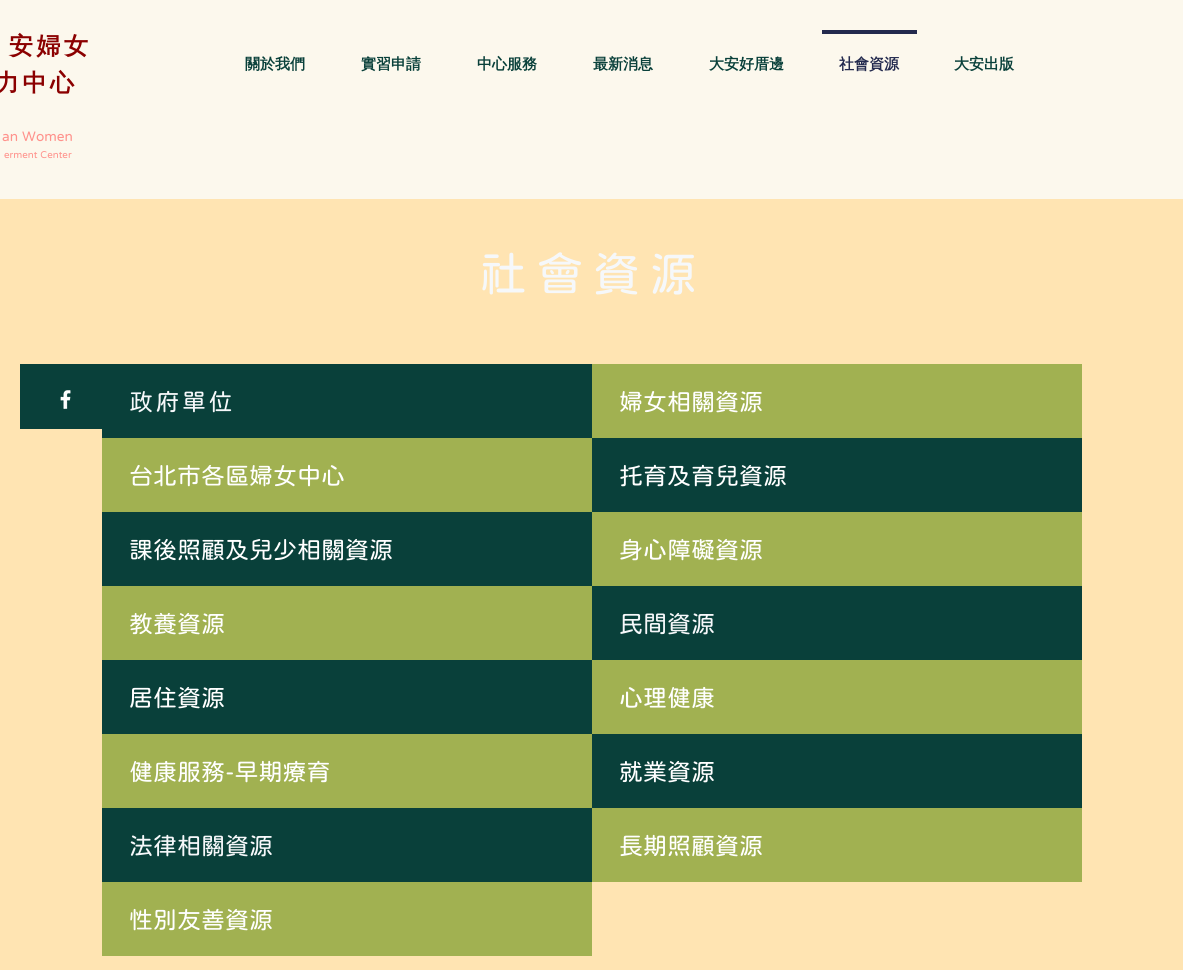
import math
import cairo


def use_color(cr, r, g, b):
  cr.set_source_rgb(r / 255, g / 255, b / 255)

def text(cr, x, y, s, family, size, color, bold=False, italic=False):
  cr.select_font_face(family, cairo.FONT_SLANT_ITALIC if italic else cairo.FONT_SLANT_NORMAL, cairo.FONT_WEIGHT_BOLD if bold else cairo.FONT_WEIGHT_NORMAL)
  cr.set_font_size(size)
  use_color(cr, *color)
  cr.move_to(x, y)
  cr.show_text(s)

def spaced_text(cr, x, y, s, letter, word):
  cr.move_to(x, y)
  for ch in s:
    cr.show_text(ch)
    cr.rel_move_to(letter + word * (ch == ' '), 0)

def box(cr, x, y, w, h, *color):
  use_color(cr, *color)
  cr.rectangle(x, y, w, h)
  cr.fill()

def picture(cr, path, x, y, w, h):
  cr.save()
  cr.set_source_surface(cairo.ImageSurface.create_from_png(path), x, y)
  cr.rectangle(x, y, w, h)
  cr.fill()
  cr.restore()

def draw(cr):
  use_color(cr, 255, 228, 178)
  cr.paint()
  box(cr, 0, 0, 1183, 199, 252, 248, 237)
  box(cr, 822, 30, 95, 4, 35, 42, 78)
  box(cr, 20, 364, 82, 65, 9, 64, 58)
  picture(cr, "img_01.png", 60, 390, 11, 19)
  box(cr, 102, 364, 490, 74, 9, 64, 58)
  box(cr, 102, 438, 490, 74, 161, 177, 81)
  box(cr, 102, 512, 490, 74, 9, 64, 58)
  box(cr, 592, 364, 490, 74, 161, 177, 81)
  box(cr, 592, 438, 490, 74, 9, 64, 58)
  box(cr, 592, 512, 490, 74, 161, 177, 81)
  box(cr, 102, 586, 490, 74, 161, 177, 81)
  box(cr, 102, 660, 490, 74, 9, 64, 58)
  box(cr, 102, 734, 490, 74, 161, 177, 81)
  box(cr, 592, 586, 490, 74, 9, 64, 58)
  box(cr, 592, 660, 490, 74, 161, 177, 81)
  box(cr, 592, 734, 490, 74, 9, 64, 58)
  box(cr, 102, 808, 490, 74, 9, 64, 58)
  box(cr, 102, 882, 490, 74, 161, 177, 81)
  box(cr, 592, 808, 490, 74, 161, 177, 81)
  cr.select_font_face("WenQuanYi Zen Hei", cairo.FONT_SLANT_NORMAL, cairo.FONT_WEIGHT_BOLD)
  cr.set_font_size(24)
  use_color(cr, 139, 0, 0)
  spaced_text(cr, 9, 54, "安婦女", 3.5, 0)
  spaced_text(cr, -5, 91, "力中心", 3.5, 0)
  text(cr, 245, 69, "關於我們", "WenQuanYi Zen Hei", 15, (9, 64, 58), bold=True)
  text(cr, 361, 69, "實習申請", "WenQuanYi Zen Hei", 15, (9, 64, 58), bold=True)
  text(cr, 477, 69, "中心服務", "WenQuanYi Zen Hei", 15, (9, 64, 58), bold=True)
  text(cr, 593, 69, "最新消息", "WenQuanYi Zen Hei", 15, (9, 64, 58), bold=True)
  text(cr, 709, 69, "大安好厝邊", "WenQuanYi Zen Hei", 15, (9, 64, 58), bold=True)
  text(cr, 839, 69, "社會資源", "WenQuanYi Zen Hei", 15, (35, 42, 78), bold=True)
  text(cr, 954, 69, "大安出版", "WenQuanYi Zen Hei", 15, (9, 64, 58), bold=True)
  text(cr, 2, 141, "an Women", "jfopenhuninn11", 14, (255, 146, 140))
  text(cr, 4, 158, "erment Center", "jfopenhuninn11", 10, (255, 146, 140))
  cr.set_font_size(47)
  use_color(cr, 246, 248, 250)
  spaced_text(cr, 480, 290, "社會資源", 9.5, 0)
  cr.set_font_size(24)
  spaced_text(cr, 129, 410, "政府單位", 2.5, 0)
  text(cr, 129, 484, "台北市各區婦女中心", "jfopenhuninn11", 24, (255, 255, 255))
  text(cr, 129, 558, "課後照顧及兒少相關資源", "jfopenhuninn11", 24, (255, 255, 255))
  text(cr, 619, 410, "婦女相關資源", "jfopenhuninn11", 24, (255, 255, 255))
  text(cr, 619, 484, "托育及育兒資源", "jfopenhuninn11", 24, (255, 255, 255))
  text(cr, 619, 558, "身心障礙資源", "jfopenhuninn11", 24, (255, 255, 255))
  text(cr, 129, 632, "教養資源", "jfopenhuninn11", 24, (255, 255, 255))
  text(cr, 129, 706, "居住資源", "jfopenhuninn11", 24, (255, 255, 255))
  text(cr, 129, 780, "健康服務-早期療育", "jfopenhuninn11", 24, (255, 255, 255))
  text(cr, 619, 632, "民間資源", "jfopenhuninn11", 24, (246, 248, 250))
  text(cr, 619, 706, "心理健康", "jfopenhuninn11", 24, (255, 255, 255))
  text(cr, 619, 780, "就業資源", "jfopenhuninn11", 24, (255, 255, 255))
  text(cr, 129, 854, "法律相關資源", "jfopenhuninn11", 24, (246, 248, 250))
  text(cr, 129, 928, "性別友善資源", "jfopenhuninn11", 24, (255, 255, 255))
  text(cr, 619, 854, "長期照顧資源", "jfopenhuninn11", 24, (255, 255, 255))


surface = cairo.ImageSurface(cairo.FORMAT_RGB24, 1183, 970)
cr = cairo.Context(surface)
options = cairo.FontOptions()
options.set_hint_metrics(cairo.HINT_METRICS_OFF)
options.set_hint_style(cairo.HINT_STYLE_NONE)
cr.set_font_options(options)
cr.set_miter_limit(4)
draw(cr)
surface.write_to_png("out.png")
